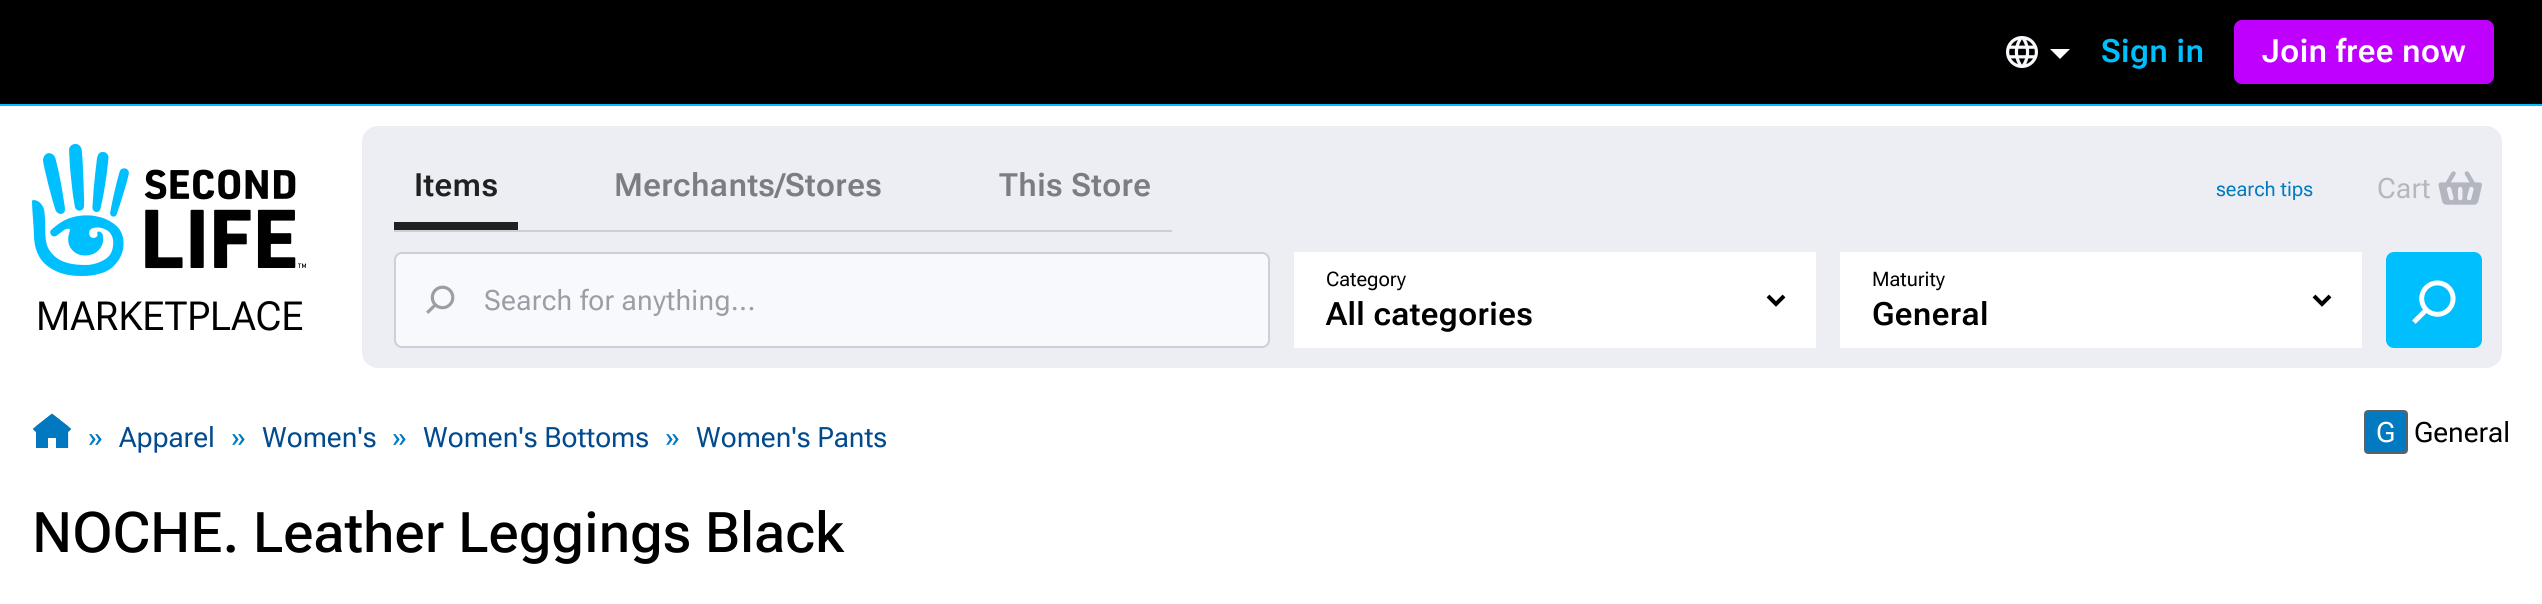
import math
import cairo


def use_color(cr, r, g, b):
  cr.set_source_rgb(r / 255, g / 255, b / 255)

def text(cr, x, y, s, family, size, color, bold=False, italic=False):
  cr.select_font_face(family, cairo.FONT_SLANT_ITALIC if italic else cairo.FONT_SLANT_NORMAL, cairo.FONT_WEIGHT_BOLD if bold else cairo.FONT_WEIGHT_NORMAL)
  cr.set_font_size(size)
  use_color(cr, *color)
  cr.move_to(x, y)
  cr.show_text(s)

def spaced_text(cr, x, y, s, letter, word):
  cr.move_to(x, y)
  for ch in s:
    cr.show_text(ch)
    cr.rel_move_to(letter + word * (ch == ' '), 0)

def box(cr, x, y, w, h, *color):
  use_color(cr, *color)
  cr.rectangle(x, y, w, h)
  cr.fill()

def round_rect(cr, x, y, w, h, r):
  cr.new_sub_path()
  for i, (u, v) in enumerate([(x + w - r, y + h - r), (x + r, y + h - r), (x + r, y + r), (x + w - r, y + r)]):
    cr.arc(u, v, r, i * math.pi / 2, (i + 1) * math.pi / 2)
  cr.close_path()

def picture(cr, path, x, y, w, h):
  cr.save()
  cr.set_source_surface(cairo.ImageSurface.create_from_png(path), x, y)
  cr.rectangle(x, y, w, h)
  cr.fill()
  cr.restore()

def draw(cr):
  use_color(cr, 255, 255, 255)
  cr.paint()
  box(cr, 0, 0, 2542, 104, 0, 0, 0)
  box(cr, 0, 104, 2542, 2, 0, 191, 255)
  picture(cr, "img_01.png", 2006, 36, 32, 32)
  use_color(cr, 255, 255, 255)
  cr.new_path()
  cr.move_to(2050, 49)
  cr.line_to(2070, 49)
  cr.line_to(2060, 59)
  cr.close_path()
  cr.fill()
  use_color(cr, 191, 0, 255)
  round_rect(cr, 2236, 22, 256, 60, 6)
  cr.fill_preserve()
  cr.set_line_width(4)
  cr.stroke()
  picture(cr, "img_02.png", 32, 144, 274, 187)
  use_color(cr, 236, 238, 243)
  round_rect(cr, 362, 126, 2140, 242, 16)
  cr.fill()
  box(cr, 394, 230, 778, 2, 204, 207, 215)
  box(cr, 394, 222, 124, 8, 32, 33, 34)
  picture(cr, "img_03.png", 2438, 171, 44, 34)
  use_color(cr, 248, 249, 252)
  round_rect(cr, 395, 253, 874, 94, 7)
  cr.fill_preserve()
  use_color(cr, 204, 207, 215)
  cr.set_line_width(2)
  cr.stroke()
  picture(cr, "img_04.png", 426, 285, 29, 29)
  box(cr, 1294, 252, 522, 96, 255, 255, 255)
  cr.new_path()
  cr.move_to(1768, 296)
  cr.line_to(1776, 304)
  cr.line_to(1784, 296)
  use_color(cr, 0, 0, 0)
  cr.set_line_width(4)
  cr.stroke()
  box(cr, 1840, 252, 522, 96, 255, 255, 255)
  cr.new_path()
  cr.move_to(2314, 296)
  cr.line_to(2322, 304)
  cr.line_to(2330, 296)
  use_color(cr, 0, 0, 0)
  cr.stroke()
  use_color(cr, 0, 191, 255)
  round_rect(cr, 2387, 253, 94, 94, 7)
  cr.fill_preserve()
  cr.set_line_width(2)
  cr.stroke()
  picture(cr, "img_05.png", 2412, 280, 44, 44)
  picture(cr, "img_06.png", 32, 413, 40, 35)
  use_color(cr, 1, 122, 193)
  round_rect(cr, 2365, 411, 42, 42, 3)
  cr.fill_preserve()
  use_color(cr, 96, 97, 102)
  cr.stroke()
  cr.select_font_face("Roboto Flex SemiBold")
  cr.set_font_size(32)
  use_color(cr, 0, 191, 255)
  spaced_text(cr, 2101, 62, "Sign in", 0.4, 0)
  use_color(cr, 255, 255, 255)
  spaced_text(cr, 2262, 62, "Join free now", 0.4, 0)
  use_color(cr, 32, 33, 34)
  spaced_text(cr, 414, 196, "Items", 0.4, 0)
  use_color(cr, 124, 125, 131)
  spaced_text(cr, 614, 196, "Merchants/Stores", 0.4, 0)
  spaced_text(cr, 999, 196, "This Store", 0.4, 0)
  text(cr, 2216, 196, "search tips", "Roboto Flex", 20, (1, 122, 193))
  cr.set_font_size(28)
  use_color(cr, 180, 183, 192)
  spaced_text(cr, 2377, 198, "Cart", 0.4, 0)
  use_color(cr, 155, 158, 166)
  spaced_text(cr, 484, 310, "Search for anything...", 0.35, 0)
  text(cr, 1326, 286, "Category", "Roboto Flex", 20, (0, 0, 0))
  cr.select_font_face("Roboto Flex SemiBold")
  cr.set_font_size(32)
  spaced_text(cr, 1326, 325, "All categories", 0.4, 0)
  text(cr, 1872, 286, "Maturity", "Roboto Flex", 20, (0, 0, 0))
  cr.select_font_face("Roboto Flex SemiBold")
  cr.set_font_size(32)
  spaced_text(cr, 1872, 325, "General", 0.4, 0)
  text(cr, 88, 447, "»", "Roboto Flex", 28, (1, 122, 193))
  text(cr, 119, 447, "Apparel", "Roboto Flex", 28, (1, 74, 142))
  text(cr, 231, 447, "»", "Roboto Flex", 28, (1, 122, 193))
  text(cr, 262, 447, "Women's", "Roboto Flex", 28, (1, 74, 142))
  text(cr, 392, 447, "»", "Roboto Flex", 28, (1, 122, 193))
  text(cr, 423, 447, "Women's Bottoms", "Roboto Flex", 28, (1, 74, 142))
  text(cr, 665, 447, "»", "Roboto Flex", 28, (1, 122, 193))
  text(cr, 696, 447, "Women's Pants", "Roboto Flex", 28, (1, 74, 142))
  text(cr, 2376, 442, "G", "Roboto Flex", 28, (255, 255, 255))
  text(cr, 2414, 442, "General", "Roboto Flex", 28, (0, 0, 0))
  text(cr, 32, 552, "NOCHE. Leather Leggings Black", "Roboto Flex Medium", 56, (0, 0, 0))


surface = cairo.ImageSurface(cairo.FORMAT_RGB24, 2542, 604)
cr = cairo.Context(surface)
options = cairo.FontOptions()
options.set_hint_metrics(cairo.HINT_METRICS_OFF)
options.set_hint_style(cairo.HINT_STYLE_NONE)
cr.set_font_options(options)
cr.set_miter_limit(4)
draw(cr)
surface.write_to_png("out.png")
